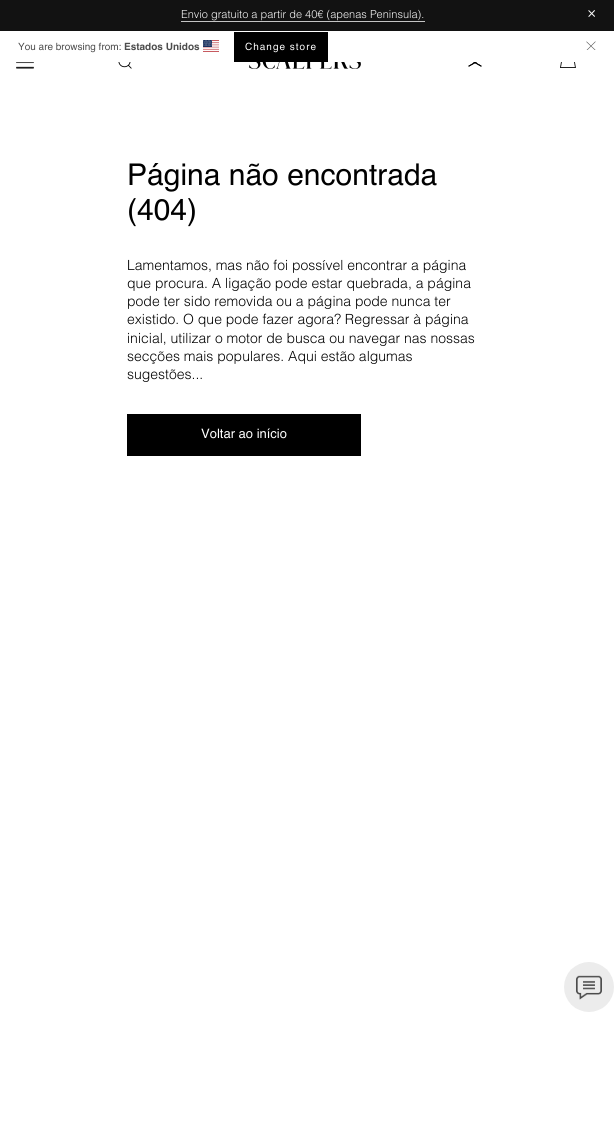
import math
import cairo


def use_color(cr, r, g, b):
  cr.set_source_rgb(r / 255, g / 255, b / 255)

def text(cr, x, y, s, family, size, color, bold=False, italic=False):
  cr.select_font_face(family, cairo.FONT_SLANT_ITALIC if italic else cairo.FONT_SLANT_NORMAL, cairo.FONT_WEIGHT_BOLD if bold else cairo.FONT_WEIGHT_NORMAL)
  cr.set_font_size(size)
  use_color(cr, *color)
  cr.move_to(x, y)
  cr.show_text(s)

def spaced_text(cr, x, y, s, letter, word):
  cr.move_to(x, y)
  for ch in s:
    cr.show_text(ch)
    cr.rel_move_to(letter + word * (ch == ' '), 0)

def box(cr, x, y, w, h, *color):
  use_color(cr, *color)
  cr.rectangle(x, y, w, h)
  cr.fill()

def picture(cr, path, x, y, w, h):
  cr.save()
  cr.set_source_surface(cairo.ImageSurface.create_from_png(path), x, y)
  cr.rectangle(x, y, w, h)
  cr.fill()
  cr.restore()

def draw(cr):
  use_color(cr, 255, 255, 255)
  cr.paint()
  box(cr, 0, 0, 614, 31, 18, 18, 18)
  box(cr, 181, 21, 244, 1, 196, 196, 196)
  picture(cr, "img_01.png", 588, 10, 7, 7)
  picture(cr, "img_02.png", 203, 40, 16, 12)
  box(cr, 234, 32, 94, 30, 0, 0, 0)
  picture(cr, "img_03.png", 586, 41, 10, 9)
  picture(cr, "img_04.png", 16, 62, 18, 7)
  picture(cr, "img_05.png", 118, 62, 14, 7)
  picture(cr, "img_06.png", 249, 62, 112, 7)
  picture(cr, "img_07.png", 468, 62, 14, 5)
  picture(cr, "img_08.png", 560, 62, 16, 6)
  box(cr, 127, 414, 234, 42, 0, 0, 0)
  picture(cr, "img_09.png", 564, 962, 50, 50)
  text(cr, 181, 18, "Envio gratuito a partir de 40€ (apenas Peninsula).", "Helvetica Light", 11, (247, 247, 247))
  text(cr, 18, 50, "You are browsing from:", "Helvetica", 10, (77, 77, 77))
  text(cr, 124, 50, "Estados Unidos", "Helvetica", 10, (77, 77, 77), bold=True)
  cr.select_font_face("Helvetica")
  use_color(cr, 255, 255, 255)
  spaced_text(cr, 245, 50, "Change store", 1, 0)
  text(cr, 127, 185, "Página não encontrada", "Helvetica", 30, (0, 0, 0))
  text(cr, 127, 220, "(404)", "Helvetica", 30, (0, 0, 0))
  text(cr, 127, 270, "Lamentamos, mas não foi possível encontrar a página", "Helvetica Light", 14, (0, 0, 0))
  text(cr, 127, 288, "que procura. A ligação pode estar quebrada, a página", "Helvetica Light", 14, (0, 0, 0))
  text(cr, 127, 306, "pode ter sido removida ou a página pode nunca ter", "Helvetica Light", 14, (0, 0, 0))
  text(cr, 127, 324, "existido. O que pode fazer agora? Regressar à página", "Helvetica Light", 14, (0, 0, 0))
  text(cr, 127, 343, "inicial, utilizar o motor de busca ou navegar nas nossas", "Helvetica Light", 14, (0, 0, 0))
  text(cr, 127, 361, "secções mais populares. Aqui estão algumas", "Helvetica Light", 14, (0, 0, 0))
  text(cr, 127, 379, "sugestões...", "Helvetica Light", 14, (0, 0, 0))
  text(cr, 201, 438, "Voltar ao início", "Helvetica", 13, (255, 255, 255))


surface = cairo.ImageSurface(cairo.FORMAT_RGB24, 614, 1128)
cr = cairo.Context(surface)
options = cairo.FontOptions()
options.set_hint_metrics(cairo.HINT_METRICS_OFF)
options.set_hint_style(cairo.HINT_STYLE_NONE)
cr.set_font_options(options)
cr.set_miter_limit(4)
draw(cr)
surface.write_to_png("out.png")
